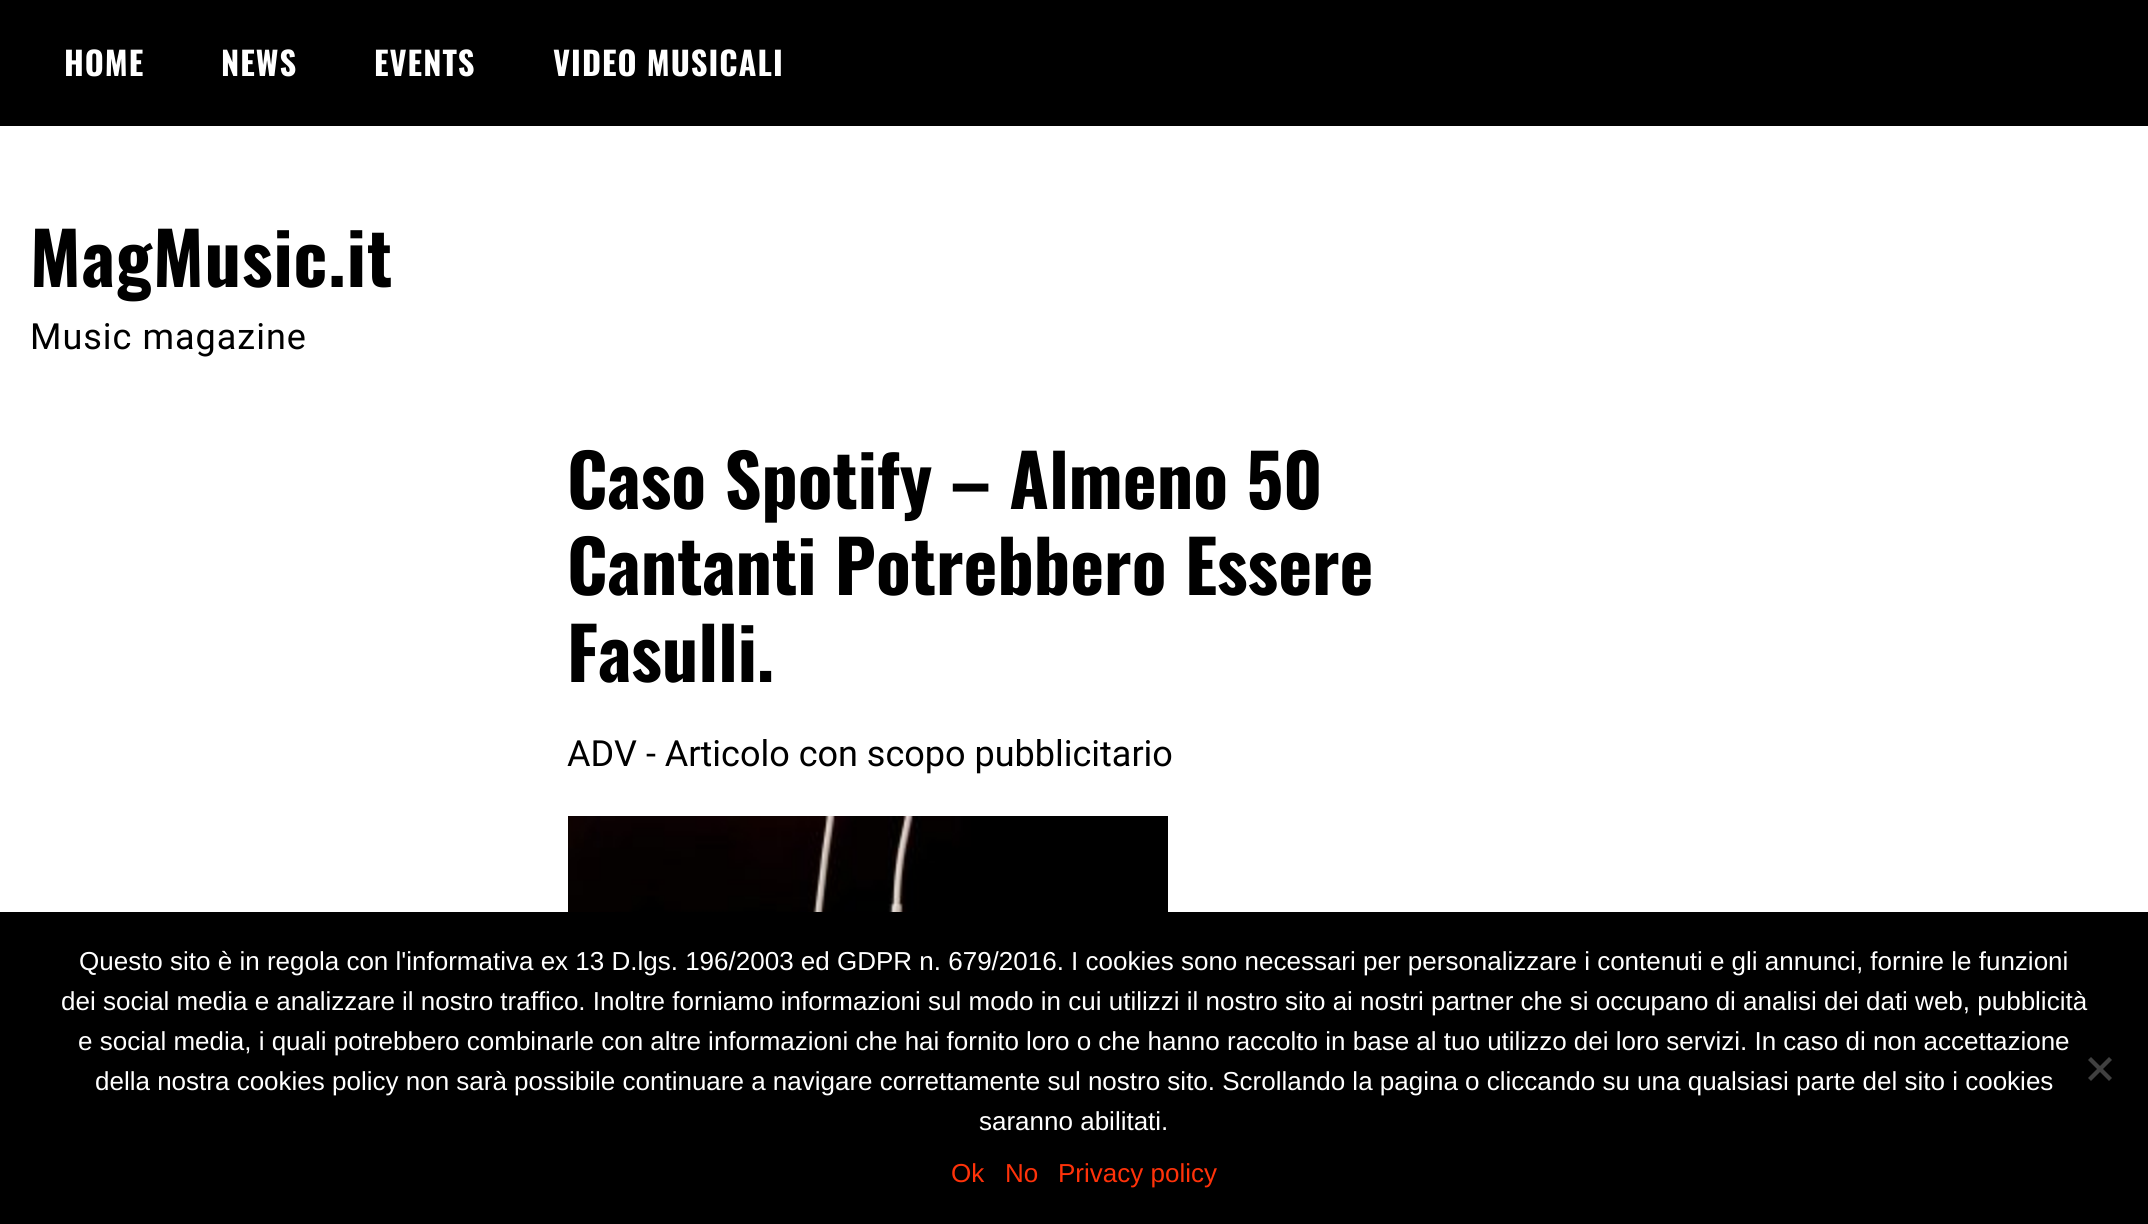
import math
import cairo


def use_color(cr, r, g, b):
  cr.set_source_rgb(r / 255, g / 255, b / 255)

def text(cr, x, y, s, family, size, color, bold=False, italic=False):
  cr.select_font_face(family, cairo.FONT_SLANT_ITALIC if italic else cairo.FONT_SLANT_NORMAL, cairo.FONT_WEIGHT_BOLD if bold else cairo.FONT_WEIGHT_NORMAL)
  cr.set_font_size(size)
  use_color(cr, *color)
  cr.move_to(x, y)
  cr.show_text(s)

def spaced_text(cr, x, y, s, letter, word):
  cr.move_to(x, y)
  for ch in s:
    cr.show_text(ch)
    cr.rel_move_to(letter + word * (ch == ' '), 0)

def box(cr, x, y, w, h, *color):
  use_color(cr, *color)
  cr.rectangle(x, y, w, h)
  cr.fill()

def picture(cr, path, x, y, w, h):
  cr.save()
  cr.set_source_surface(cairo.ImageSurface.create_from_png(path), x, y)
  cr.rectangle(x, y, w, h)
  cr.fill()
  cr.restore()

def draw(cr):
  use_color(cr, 255, 255, 255)
  cr.paint()
  box(cr, 0, 0, 2148, 126, 0, 0, 0)
  picture(cr, "img_01.png", 568, 816, 600, 96)
  box(cr, 0, 912, 2148, 312, 0, 0, 0)
  use_color(cr, 64, 64, 64)
  cr.new_path()
  cr.move_to(2109, 1057)
  cr.line_to(2112, 1060)
  cr.line_to(2091, 1081)
  cr.line_to(2088, 1078)
  cr.close_path()
  cr.fill()
  cr.new_path()
  cr.move_to(2088, 1060)
  cr.line_to(2091, 1057)
  cr.line_to(2112, 1078)
  cr.line_to(2109, 1081)
  cr.close_path()
  cr.fill()
  cr.select_font_face("Oswald", cairo.FONT_SLANT_NORMAL, cairo.FONT_WEIGHT_BOLD)
  cr.set_font_size(32.5)
  use_color(cr, 255, 255, 255)
  spaced_text(cr, 64, 76, "HOME", 1, 0)
  spaced_text(cr, 221, 76, "NEWS", 1, 0)
  spaced_text(cr, 374, 76, "EVENTS", 1, 0)
  spaced_text(cr, 553, 76, "VIDEO MUSICALI", 1, 0)
  cr.set_font_size(72)
  use_color(cr, 0, 0, 0)
  spaced_text(cr, 30, 287, "MagMusic.it", 1, 0)
  cr.select_font_face("Roboto")
  cr.set_font_size(36)
  spaced_text(cr, 30, 349, "Music magazine", 1, 0)
  text(cr, 567, 509, "Caso Spotify – Almeno 50", "Oswald", 72, (0, 0, 0), bold=True)
  text(cr, 567, 595, "Cantanti Potrebbero Essere", "Oswald", 72, (0, 0, 0), bold=True)
  text(cr, 567, 682, "Fasulli.", "Oswald", 72, (0, 0, 0), bold=True)
  text(cr, 567, 766, "ADV - Articolo con scopo pubblicitario", "Roboto", 36, (0, 0, 0))
  text(cr, 79, 970, "Questo sito è in regola con l'informativa ex 13 D.lgs. 196/2003 ed GDPR n. 679/2016. I cookies sono necessari per personalizzare i contenuti e gli annunci, fornire le funzioni", "Liberation Sans", 26, (255, 255, 255))
  text(cr, 61, 1010, "dei social media e analizzare il nostro traffico. Inoltre forniamo informazioni sul modo in cui utilizzi il nostro sito ai nostri partner che si occupano di analisi dei dati web, pubblicità", "Liberation Sans", 26, (255, 255, 255))
  text(cr, 78, 1050, "e social media, i quali potrebbero combinarle con altre informazioni che hai fornito loro o che hanno raccolto in base al tuo utilizzo dei loro servizi. In caso di non accettazione", "Liberation Sans", 26, (255, 255, 255))
  text(cr, 95, 1090, "della nostra cookies policy non sarà possibile continuare a navigare correttamente sul nostro sito. Scrollando la pagina o cliccando su una qualsiasi parte del sito i cookies", "Liberation Sans", 26, (255, 255, 255))
  text(cr, 979, 1130, "saranno abilitati.", "Liberation Sans", 26, (255, 255, 255))
  text(cr, 951, 1182, "Ok", "Liberation Sans", 26, (255, 50, 9))
  text(cr, 1005, 1182, "No", "Liberation Sans", 26, (255, 50, 9))
  text(cr, 1058, 1182, "Privacy policy", "Liberation Sans", 26, (255, 50, 9))


surface = cairo.ImageSurface(cairo.FORMAT_RGB24, 2148, 1224)
cr = cairo.Context(surface)
options = cairo.FontOptions()
options.set_hint_metrics(cairo.HINT_METRICS_OFF)
options.set_hint_style(cairo.HINT_STYLE_NONE)
cr.set_font_options(options)
cr.set_miter_limit(4)
draw(cr)
surface.write_to_png("out.png")
